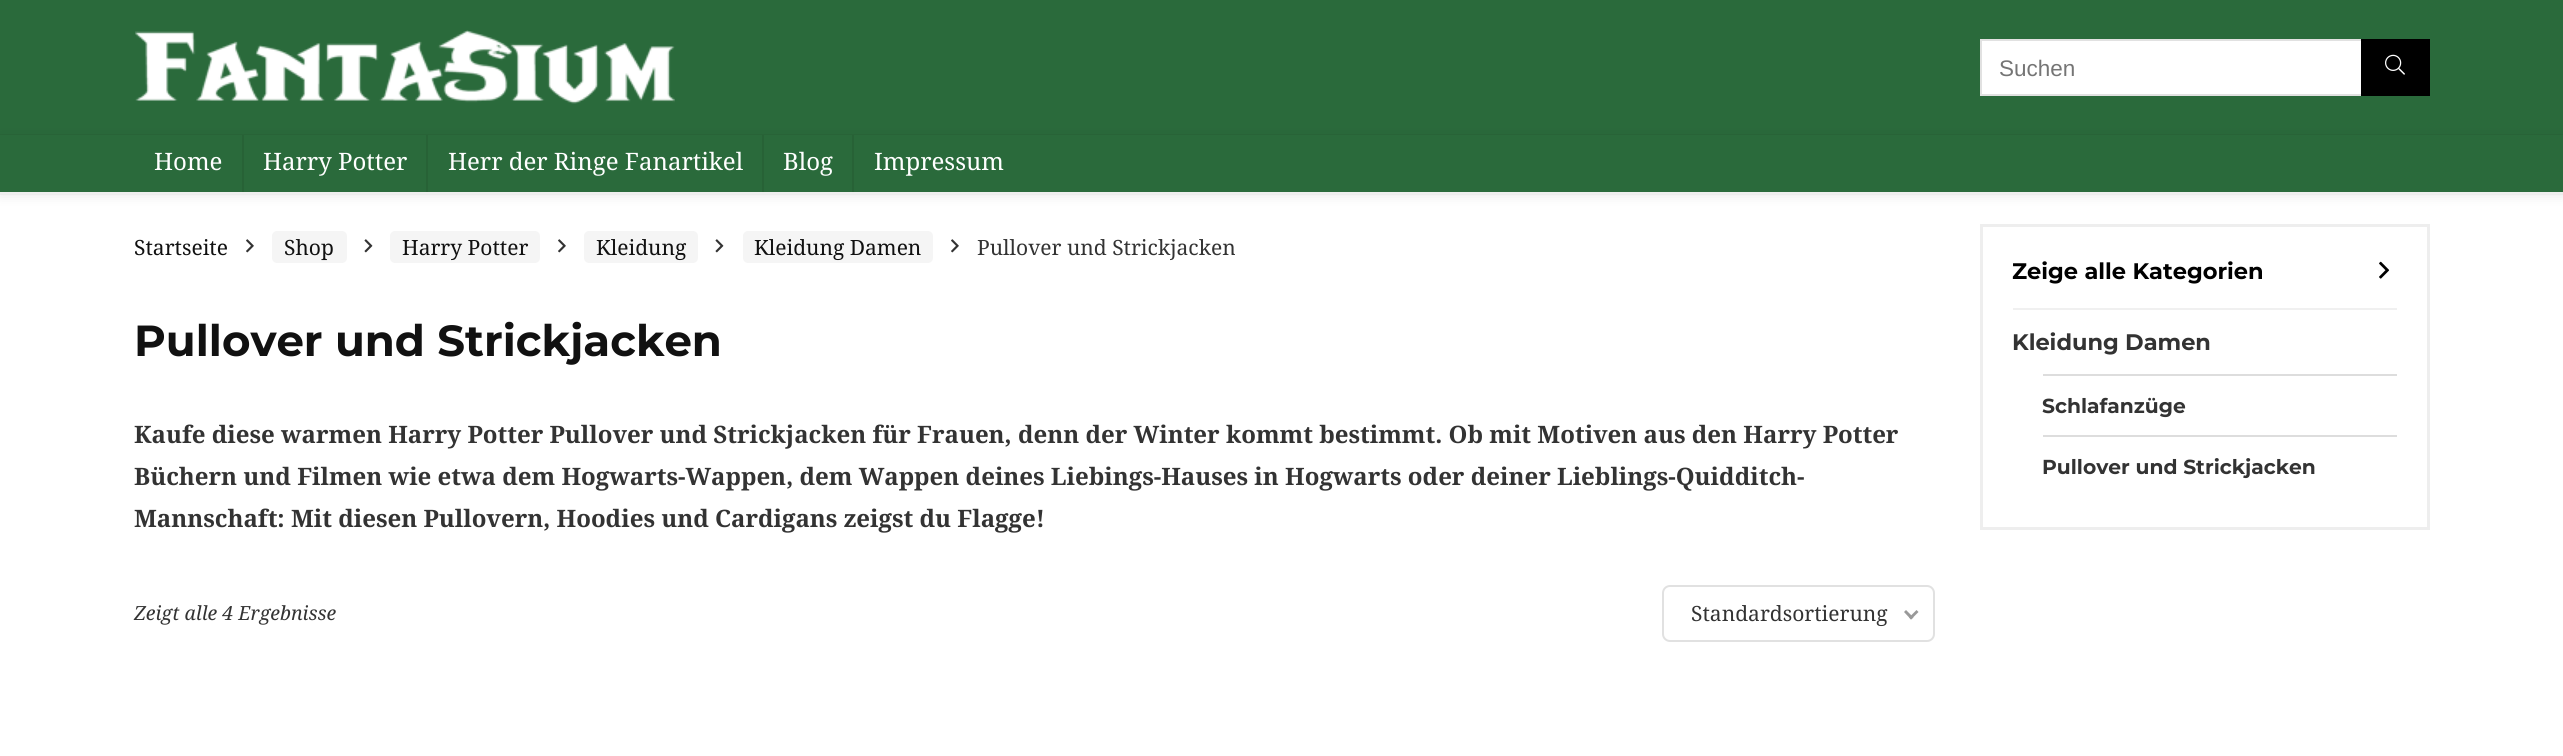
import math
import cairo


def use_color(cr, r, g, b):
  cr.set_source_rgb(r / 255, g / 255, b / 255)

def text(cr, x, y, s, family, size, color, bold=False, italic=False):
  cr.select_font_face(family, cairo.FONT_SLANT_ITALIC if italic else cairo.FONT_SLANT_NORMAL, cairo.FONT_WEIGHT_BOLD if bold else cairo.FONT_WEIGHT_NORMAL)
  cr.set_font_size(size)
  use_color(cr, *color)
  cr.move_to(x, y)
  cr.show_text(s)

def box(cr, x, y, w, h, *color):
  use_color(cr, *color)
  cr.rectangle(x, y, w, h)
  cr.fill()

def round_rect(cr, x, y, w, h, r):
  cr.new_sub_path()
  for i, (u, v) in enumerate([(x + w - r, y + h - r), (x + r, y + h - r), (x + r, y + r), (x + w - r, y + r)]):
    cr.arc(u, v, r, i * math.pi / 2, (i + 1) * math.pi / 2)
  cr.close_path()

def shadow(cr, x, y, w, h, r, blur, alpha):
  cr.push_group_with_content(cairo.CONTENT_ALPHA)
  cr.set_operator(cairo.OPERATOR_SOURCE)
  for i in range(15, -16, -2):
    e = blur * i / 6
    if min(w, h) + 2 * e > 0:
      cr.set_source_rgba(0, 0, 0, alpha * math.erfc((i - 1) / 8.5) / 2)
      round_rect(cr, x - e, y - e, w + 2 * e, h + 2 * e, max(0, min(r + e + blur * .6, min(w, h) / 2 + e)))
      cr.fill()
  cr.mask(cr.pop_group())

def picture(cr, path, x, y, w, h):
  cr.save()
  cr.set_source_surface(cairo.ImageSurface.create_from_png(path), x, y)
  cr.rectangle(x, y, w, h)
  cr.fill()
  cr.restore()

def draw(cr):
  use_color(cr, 255, 255, 255)
  cr.paint()
  box(cr, 0, 0, 2563, 135, 42, 106, 59)
  picture(cr, "img_01.png", 135, 30, 540, 74)
  box(cr, 1982, 41, 379, 53, 255, 255, 255)
  cr.rectangle(1981, 40, 448, 55)
  use_color(cr, 225, 225, 225)
  cr.stroke()
  box(cr, 2361, 39, 69, 57, 0, 0, 0)
  picture(cr, "img_02.png", 2385, 54, 20, 21)
  cr.rectangle(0, 135, 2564, 59)
  cr.set_source_rgba(0, 0, 0, 0.03)
  cr.stroke()
  use_color(cr, 0, 0, 0)
  shadow(cr, 0, 137, 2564, 58, 0, 6, 0.1)
  box(cr, 0, 135, 2563, 57, 42, 106, 59)
  box(cr, 0, 192, 2563, 2, 238, 238, 238)
  box(cr, 242, 135, 2, 57, 39, 98, 54)
  box(cr, 426, 135, 2, 57, 39, 98, 54)
  box(cr, 762, 135, 2, 57, 39, 98, 54)
  box(cr, 852, 135, 2, 57, 39, 98, 54)
  picture(cr, "img_03.png", 246, 239, 8, 14)
  use_color(cr, 245, 245, 245)
  round_rect(cr, 272, 231, 75, 32, 5)
  cr.fill()
  picture(cr, "img_04.png", 364, 239, 9, 14)
  round_rect(cr, 390, 231, 150, 32, 5)
  cr.fill()
  picture(cr, "img_03.png", 558, 239, 8, 14)
  round_rect(cr, 584, 231, 114, 32, 5)
  cr.fill()
  picture(cr, "img_04.png", 715, 239, 9, 14)
  round_rect(cr, 743, 231, 190, 32, 5)
  cr.fill()
  picture(cr, "img_03.png", 951, 239, 8, 14)
  round_rect(cr, 1663, 586, 271, 55, 7)
  use_color(cr, 225, 225, 225)
  cr.stroke()
  use_color(cr, 153, 153, 153)
  cr.new_path()
  cr.move_to(1916.5, 610)
  cr.line_to(1918.5, 612)
  cr.line_to(1911, 619.5)
  cr.line_to(1909, 617.5)
  cr.close_path()
  cr.fill()
  cr.new_path()
  cr.move_to(1906, 610)
  cr.line_to(1913.5, 617.5)
  cr.line_to(1911, 619.5)
  cr.line_to(1904, 612)
  cr.close_path()
  cr.fill()
  cr.rectangle(1981.5, 225.5, 447, 303)
  use_color(cr, 238, 238, 238)
  cr.set_line_width(3)
  cr.stroke()
  box(cr, 2013, 308, 384, 2, 240, 240, 240)
  picture(cr, "img_05.png", 2379, 261, 11, 18)
  box(cr, 2043, 374, 354, 2, 221, 221, 221)
  box(cr, 2043, 435, 354, 2, 221, 221, 221)
  text(cr, 1999, 76, "Suchen", "Liberation Sans", 22.5, (117, 117, 117))
  text(cr, 154, 170, "Home", "Noto Serif", 24, (255, 255, 255))
  text(cr, 263, 170, "Harry Potter", "Noto Serif", 24, (255, 255, 255))
  text(cr, 448, 170, "Herr der Ringe Fanartikel", "Noto Serif", 24, (255, 255, 255))
  text(cr, 783, 170, "Blog", "Noto Serif", 24, (255, 255, 255))
  text(cr, 874, 170, "Impressum", "Noto Serif", 24, (255, 255, 255))
  text(cr, 134, 255, "Startseite", "Noto Serif", 21, (17, 17, 17))
  text(cr, 284, 255, "Shop", "Noto Serif", 21, (17, 17, 17))
  text(cr, 402, 255, "Harry Potter", "Noto Serif", 21, (17, 17, 17))
  text(cr, 596, 255, "Kleidung", "Noto Serif", 21, (17, 17, 17))
  text(cr, 754, 255, "Kleidung Damen", "Noto Serif", 21, (17, 17, 17))
  text(cr, 977, 255, "Pullover und Strickjacken", "Noto Serif", 21, (51, 51, 51))
  text(cr, 134, 356, "Pullover und Strickjacken", "Montserrat", 43.5, (17, 17, 17), bold=True)
  text(cr, 134, 443, "Kaufe diese warmen Harry Potter Pullover und Strickjacken für Frauen, denn der Winter kommt bestimmt. Ob mit Motiven aus den Harry Potter", "Noto Serif", 24, (51, 51, 51), bold=True)
  text(cr, 134, 485, "Büchern und Filmen wie etwa dem Hogwarts-Wappen, dem Wappen deines Liebings-Hauses in Hogwarts oder deiner Lieblings-Quidditch-", "Noto Serif", 24, (51, 51, 51), bold=True)
  text(cr, 134, 527, "Mannschaft: Mit diesen Pullovern, Hoodies und Cardigans zeigst du Flagge!", "Noto Serif", 24, (51, 51, 51), bold=True)
  text(cr, 134, 620, "Zeigt alle 4 Ergebnisse", "Noto Serif", 19.5, (51, 51, 51), italic=True)
  text(cr, 1691, 621, "Standardsortierung", "Noto Serif", 21, (51, 51, 51))
  text(cr, 2012, 279, "Zeige alle Kategorien", "Montserrat", 22.5, (0, 0, 0), bold=True)
  text(cr, 2012, 350, "Kleidung Damen", "Montserrat", 22.5, (51, 51, 51), bold=True)
  text(cr, 2042, 413, "Schlafanzüge", "Montserrat", 20.25, (51, 51, 51), bold=True)
  text(cr, 2042, 474, "Pullover und Strickjacken", "Montserrat", 20.25, (51, 51, 51), bold=True)


surface = cairo.ImageSurface(cairo.FORMAT_RGB24, 2563, 756)
cr = cairo.Context(surface)
options = cairo.FontOptions()
options.set_hint_metrics(cairo.HINT_METRICS_OFF)
options.set_hint_style(cairo.HINT_STYLE_NONE)
cr.set_font_options(options)
cr.set_miter_limit(4)
draw(cr)
surface.write_to_png("out.png")
